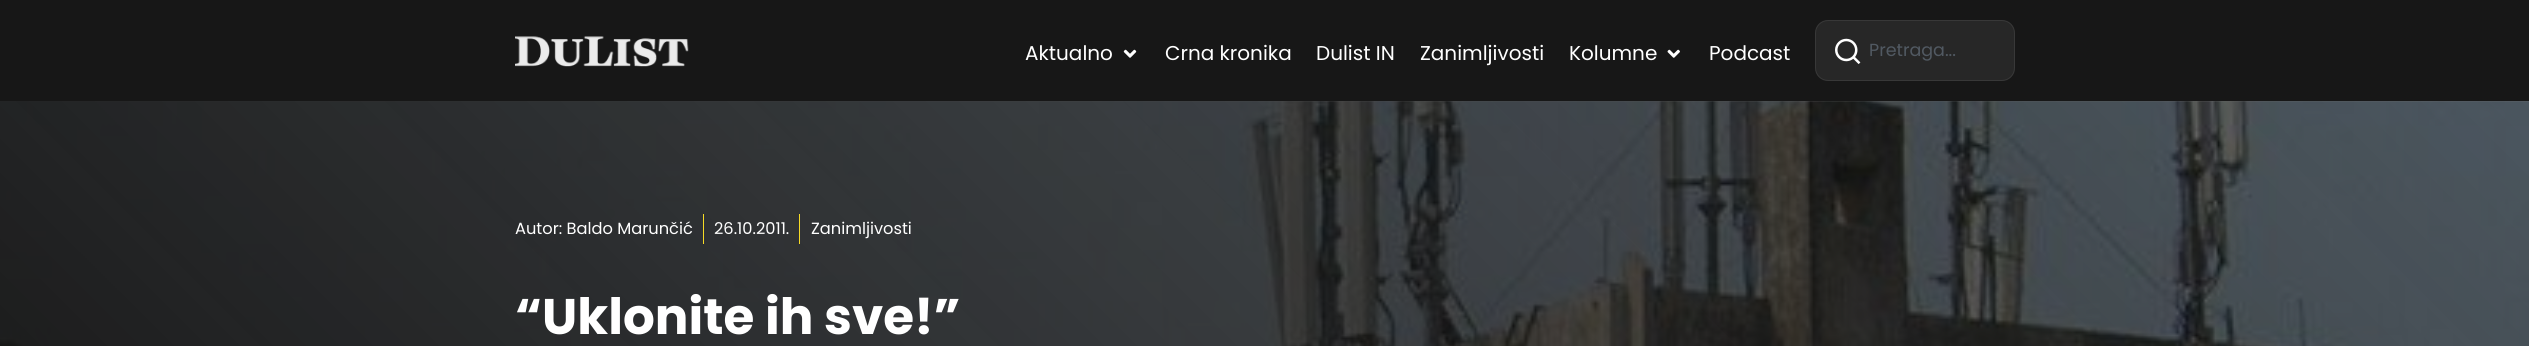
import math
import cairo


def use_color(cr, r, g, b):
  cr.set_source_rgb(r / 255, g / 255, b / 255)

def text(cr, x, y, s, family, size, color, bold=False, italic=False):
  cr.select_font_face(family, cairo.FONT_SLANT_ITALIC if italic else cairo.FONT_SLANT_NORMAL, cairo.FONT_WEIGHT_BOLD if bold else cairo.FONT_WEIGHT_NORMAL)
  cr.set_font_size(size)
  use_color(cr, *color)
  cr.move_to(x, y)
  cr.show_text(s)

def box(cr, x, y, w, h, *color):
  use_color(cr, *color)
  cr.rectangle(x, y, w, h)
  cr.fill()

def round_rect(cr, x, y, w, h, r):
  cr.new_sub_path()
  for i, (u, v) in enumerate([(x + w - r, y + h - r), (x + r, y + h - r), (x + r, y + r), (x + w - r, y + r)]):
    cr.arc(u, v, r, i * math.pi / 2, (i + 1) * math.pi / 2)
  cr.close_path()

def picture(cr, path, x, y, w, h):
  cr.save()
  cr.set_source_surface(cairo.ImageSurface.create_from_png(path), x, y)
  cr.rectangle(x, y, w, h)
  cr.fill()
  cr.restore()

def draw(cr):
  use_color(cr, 255, 255, 255)
  cr.paint()
  box(cr, 0, 0, 2529, 101, 23, 23, 23)
  picture(cr, "img_01.png", 515, 36, 174, 31)
  picture(cr, "img_02.png", 1123, 49, 14, 9)
  picture(cr, "img_03.png", 1667, 49, 13, 9)
  use_color(cr, 39, 39, 39)
  round_rect(cr, 1815, 20, 200, 61, 13)
  cr.fill()
  round_rect(cr, 1815.5, 20.5, 199, 60, 12.5)
  cr.set_source_rgba(1, 1, 1, 0.08)
  cr.set_line_width(1)
  cr.stroke()
  picture(cr, "img_04.png", 1835, 38, 26, 26)
  picture(cr, "img_05.png", 0, 101, 2529, 245)
  gradient = cairo.LinearGradient(503, 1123, 2027, -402)
  gradient.add_color_stop_rgba(0, 0.09, 0.09, 0.09, 1)
  gradient.add_color_stop_rgba(1, 0.09, 0.09, 0.09, 0.64)
  cr.set_source(gradient)
  cr.rectangle(0, 101, 2529, 245)
  cr.fill()
  box(cr, 703, 214, 1, 30, 246, 218, 38)
  box(cr, 799, 214, 1, 30, 246, 218, 38)
  text(cr, 1025, 60, "Aktualno", "Poppins", 20, (255, 255, 255))
  text(cr, 1165, 60, "Crna kronika", "Poppins", 20, (255, 255, 255))
  text(cr, 1316, 60, "Dulist IN", "Poppins", 20, (255, 255, 255))
  text(cr, 1420, 60, "Zanimljivosti", "Poppins", 20, (255, 255, 255))
  text(cr, 1569, 60, "Kolumne", "Poppins", 20, (255, 255, 255))
  text(cr, 1709, 60, "Podcast", "Poppins", 20, (255, 255, 255))
  text(cr, 1869, 56, "Pretraga...", "Poppins", 17.5, (81, 89, 98))
  text(cr, 515, 234, "Autor: Baldo Marunčić", "Poppins", 16.25, (255, 255, 255))
  text(cr, 714, 234, "26.10.2011.", "Poppins", 16.25, (255, 255, 255))
  text(cr, 811, 234, "Zanimljivosti", "Poppins", 16.25, (255, 255, 255))
  text(cr, 515, 334, "“Uklonite ih sve!”", "Poppins", 50, (255, 255, 255), bold=True)


surface = cairo.ImageSurface(cairo.FORMAT_RGB24, 2529, 346)
cr = cairo.Context(surface)
options = cairo.FontOptions()
options.set_hint_metrics(cairo.HINT_METRICS_OFF)
options.set_hint_style(cairo.HINT_STYLE_NONE)
cr.set_font_options(options)
cr.set_miter_limit(4)
draw(cr)
surface.write_to_png("out.png")
